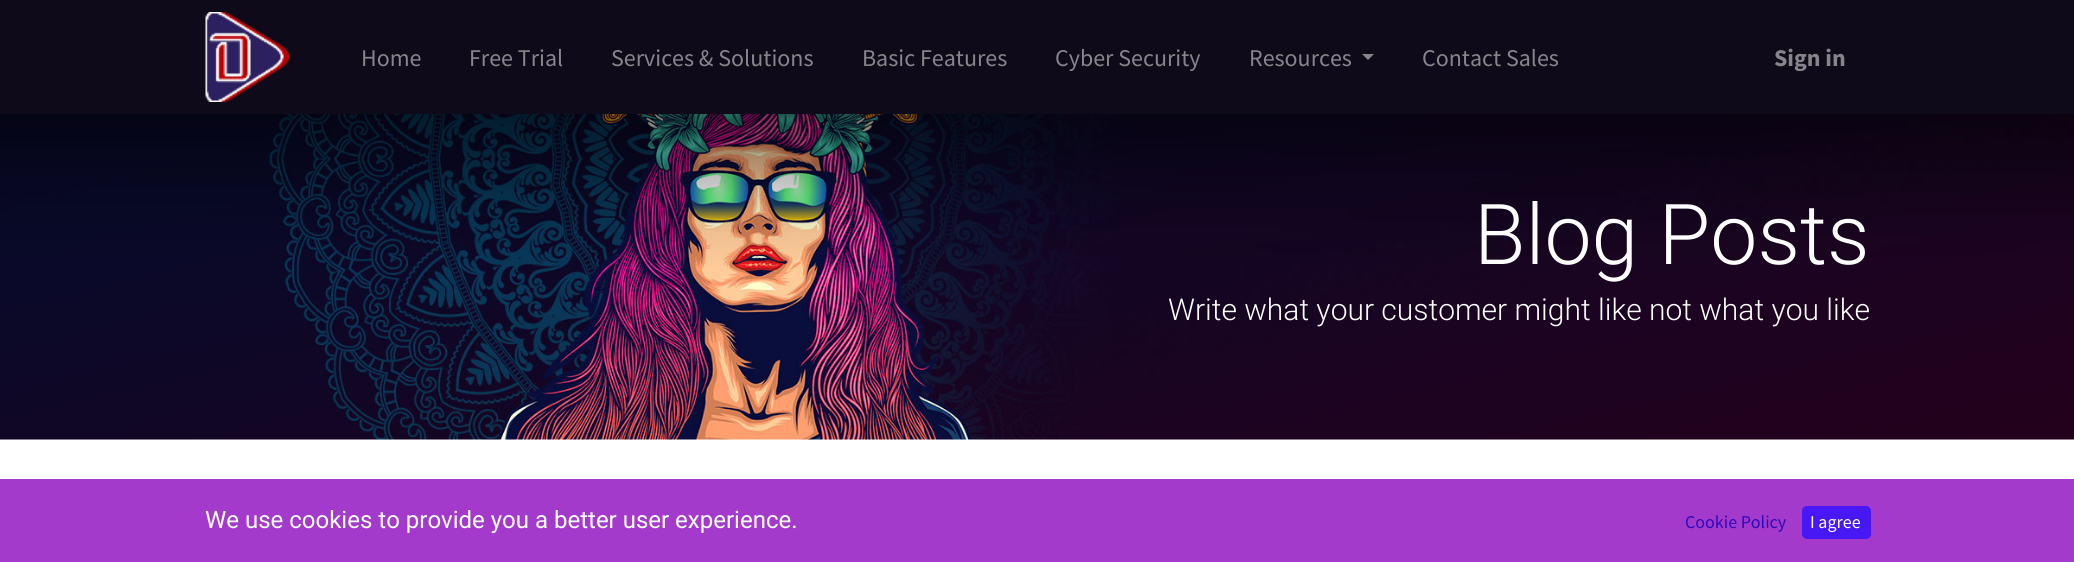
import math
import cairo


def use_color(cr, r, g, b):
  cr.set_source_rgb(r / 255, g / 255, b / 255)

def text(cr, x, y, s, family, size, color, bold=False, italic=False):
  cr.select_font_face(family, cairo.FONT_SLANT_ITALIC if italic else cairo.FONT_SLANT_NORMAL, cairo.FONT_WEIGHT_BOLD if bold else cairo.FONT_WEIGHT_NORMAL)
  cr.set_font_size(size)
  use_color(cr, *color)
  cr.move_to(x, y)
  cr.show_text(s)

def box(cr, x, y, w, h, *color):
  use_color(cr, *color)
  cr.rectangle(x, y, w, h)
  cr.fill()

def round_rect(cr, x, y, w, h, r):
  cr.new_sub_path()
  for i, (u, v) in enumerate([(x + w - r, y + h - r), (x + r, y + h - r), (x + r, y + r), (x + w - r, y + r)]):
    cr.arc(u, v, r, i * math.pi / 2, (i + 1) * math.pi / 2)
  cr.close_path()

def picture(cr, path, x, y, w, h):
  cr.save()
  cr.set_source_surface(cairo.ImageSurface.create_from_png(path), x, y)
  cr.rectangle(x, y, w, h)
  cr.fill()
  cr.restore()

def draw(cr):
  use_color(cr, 255, 255, 255)
  cr.paint()
  box(cr, 0, 0, 2074, 114, 15, 10, 25)
  picture(cr, "img_01.png", 205, 12, 85, 90)
  use_color(cr, 135, 133, 140)
  cr.new_path()
  cr.move_to(1362, 54)
  cr.line_to(1374, 54)
  cr.line_to(1368, 60)
  cr.close_path()
  cr.fill()
  picture(cr, "img_02.png", 0, 114, 2074, 326)
  box(cr, 0, 479, 2074, 83, 164, 58, 203)
  use_color(cr, 71, 23, 246)
  round_rect(cr, 1803, 507, 67, 31, 4)
  cr.fill_preserve()
  cr.stroke()
  text(cr, 361, 66, "Home", "Source Sans Pro", 24, (135, 133, 140))
  text(cr, 469, 66, "Free Trial", "Source Sans Pro", 24, (135, 133, 140))
  text(cr, 611, 66, "Services & Solutions", "Source Sans Pro", 24, (135, 133, 140))
  text(cr, 862, 66, "Basic Features", "Source Sans Pro", 24, (135, 133, 140))
  text(cr, 1055, 66, "Cyber Security", "Source Sans Pro", 24, (135, 133, 140))
  text(cr, 1249, 66, "Resources", "Source Sans Pro", 24, (135, 133, 140))
  text(cr, 1422, 66, "Contact Sales", "Source Sans Pro", 24, (135, 133, 140))
  text(cr, 1774, 66, "Sign in", "Source Sans Pro", 24, (135, 133, 140), bold=True)
  text(cr, 1474, 264, "Blog Posts", "Roboto Light", 84, (255, 255, 255))
  text(cr, 1168, 320, "Write what your customer might like not what you like", "Roboto Light", 30, (255, 255, 255))
  text(cr, 205, 528, "We use cookies to provide you a better user experience.", "Roboto", 24, (255, 255, 255))
  text(cr, 1685, 528, "Cookie Policy", "Source Sans Pro", 18, (46, 7, 185))
  text(cr, 1810, 528, "I agree", "Source Sans Pro", 18, (255, 255, 255))


surface = cairo.ImageSurface(cairo.FORMAT_RGB24, 2074, 562)
cr = cairo.Context(surface)
options = cairo.FontOptions()
options.set_hint_metrics(cairo.HINT_METRICS_OFF)
options.set_hint_style(cairo.HINT_STYLE_NONE)
cr.set_font_options(options)
cr.set_miter_limit(4)
draw(cr)
surface.write_to_png("out.png")
